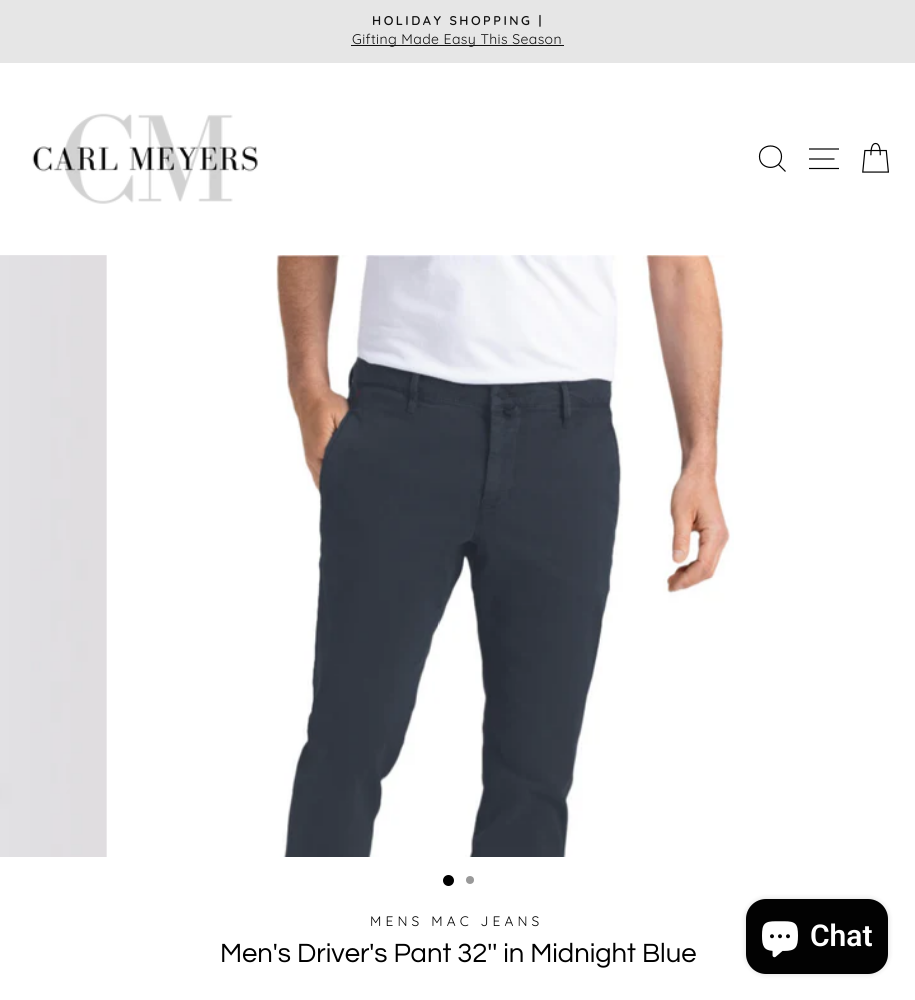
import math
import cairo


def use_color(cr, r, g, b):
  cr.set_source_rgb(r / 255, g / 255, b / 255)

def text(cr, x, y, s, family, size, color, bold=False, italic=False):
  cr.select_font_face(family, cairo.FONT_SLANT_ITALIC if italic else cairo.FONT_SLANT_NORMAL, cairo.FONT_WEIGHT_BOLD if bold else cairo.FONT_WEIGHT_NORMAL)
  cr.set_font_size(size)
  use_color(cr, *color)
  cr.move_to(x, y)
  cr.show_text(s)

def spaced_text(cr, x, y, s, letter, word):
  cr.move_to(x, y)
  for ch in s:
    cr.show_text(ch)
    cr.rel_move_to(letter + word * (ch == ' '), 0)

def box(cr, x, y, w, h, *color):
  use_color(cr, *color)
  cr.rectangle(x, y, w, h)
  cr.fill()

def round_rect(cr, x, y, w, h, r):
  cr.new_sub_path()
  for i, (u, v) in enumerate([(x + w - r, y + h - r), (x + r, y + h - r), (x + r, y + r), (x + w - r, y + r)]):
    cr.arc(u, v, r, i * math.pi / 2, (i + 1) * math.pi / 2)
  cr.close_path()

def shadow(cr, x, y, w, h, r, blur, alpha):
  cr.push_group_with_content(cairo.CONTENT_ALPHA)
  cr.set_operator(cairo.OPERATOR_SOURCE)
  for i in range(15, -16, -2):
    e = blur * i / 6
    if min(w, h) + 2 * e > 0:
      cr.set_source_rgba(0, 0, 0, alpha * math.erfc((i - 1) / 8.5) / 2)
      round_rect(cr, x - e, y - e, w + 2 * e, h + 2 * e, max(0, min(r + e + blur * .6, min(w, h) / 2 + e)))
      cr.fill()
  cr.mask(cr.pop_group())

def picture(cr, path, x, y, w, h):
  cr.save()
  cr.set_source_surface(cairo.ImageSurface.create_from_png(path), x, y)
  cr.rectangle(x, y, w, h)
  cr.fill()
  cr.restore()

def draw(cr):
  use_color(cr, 255, 255, 255)
  cr.paint()
  box(cr, 0, 0, 915, 63, 230, 230, 230)
  box(cr, 351, 45, 213, 1, 17, 17, 17)
  picture(cr, "img_01.png", 32, 113, 226, 91)
  cr.new_path()
  cr.move_to(781.5, 156.5)
  cr.curve_to(781.5, 171, 759.5, 171, 759.5, 156.5)
  cr.curve_to(759.5, 142.5, 781.5, 142.5, 781.5, 156.5)
  cr.close_path()
  cr.move_to(785.5, 171.5)
  cr.line_to(778.5, 164.5)
  use_color(cr, 0, 0, 0)
  cr.set_line_width(1.2)
  cr.stroke()
  cr.new_path()
  cr.move_to(809, 149)
  cr.line_to(839, 149)
  cr.move_to(809, 159)
  cr.line_to(834.5, 159)
  cr.move_to(809, 168.5)
  cr.line_to(839, 168.5)
  cr.stroke()
  picture(cr, "img_02.png", 862, 142, 27, 31)
  picture(cr, "img_03.png", 0, 255, 107, 602)
  picture(cr, "img_04.png", 276, 255, 458, 602)
  cr.arc(448.5, 880.5, 5.5, 0, 2 * math.pi)
  cr.fill()
  use_color(cr, 153, 153, 153)
  cr.arc(470, 880, 4, 0, 2 * math.pi)
  cr.fill()
  use_color(cr, 0, 0, 0)
  shadow(cr, 746, 899, 142, 75, 20, 3, 0.15)
  use_color(cr, 2, 2, 2)
  round_rect(cr, 746, 899, 142, 75, 20)
  cr.fill()
  picture(cr, "img_05.png", 762, 921, 36, 37)
  cr.select_font_face("Quicksand SemiBold")
  cr.set_font_size(12.7)
  use_color(cr, 17, 17, 17)
  spaced_text(cr, 372, 25, "HOLIDAY SHOPPING |", 2.5, 0)
  cr.select_font_face("Quicksand Light")
  cr.set_font_size(14)
  spaced_text(cr, 352, 44, "Gifting Made Easy This Season", 0.4, 0)
  cr.set_font_size(13.75)
  use_color(cr, 0, 0, 0)
  spaced_text(cr, 370, 926, "MENS MAC JEANS", 4.1, 0)
  text(cr, 220, 962, "Men's Driver's Pant 32'' in Midnight Blue", "Questrial", 27.4, (0, 0, 0))
  text(cr, 810, 946, "Chat", "Roboto SemiBold", 30, (255, 255, 255))


surface = cairo.ImageSurface(cairo.FORMAT_RGB24, 915, 1000)
cr = cairo.Context(surface)
options = cairo.FontOptions()
options.set_hint_metrics(cairo.HINT_METRICS_OFF)
options.set_hint_style(cairo.HINT_STYLE_NONE)
cr.set_font_options(options)
cr.set_miter_limit(4)
draw(cr)
surface.write_to_png("out.png")
